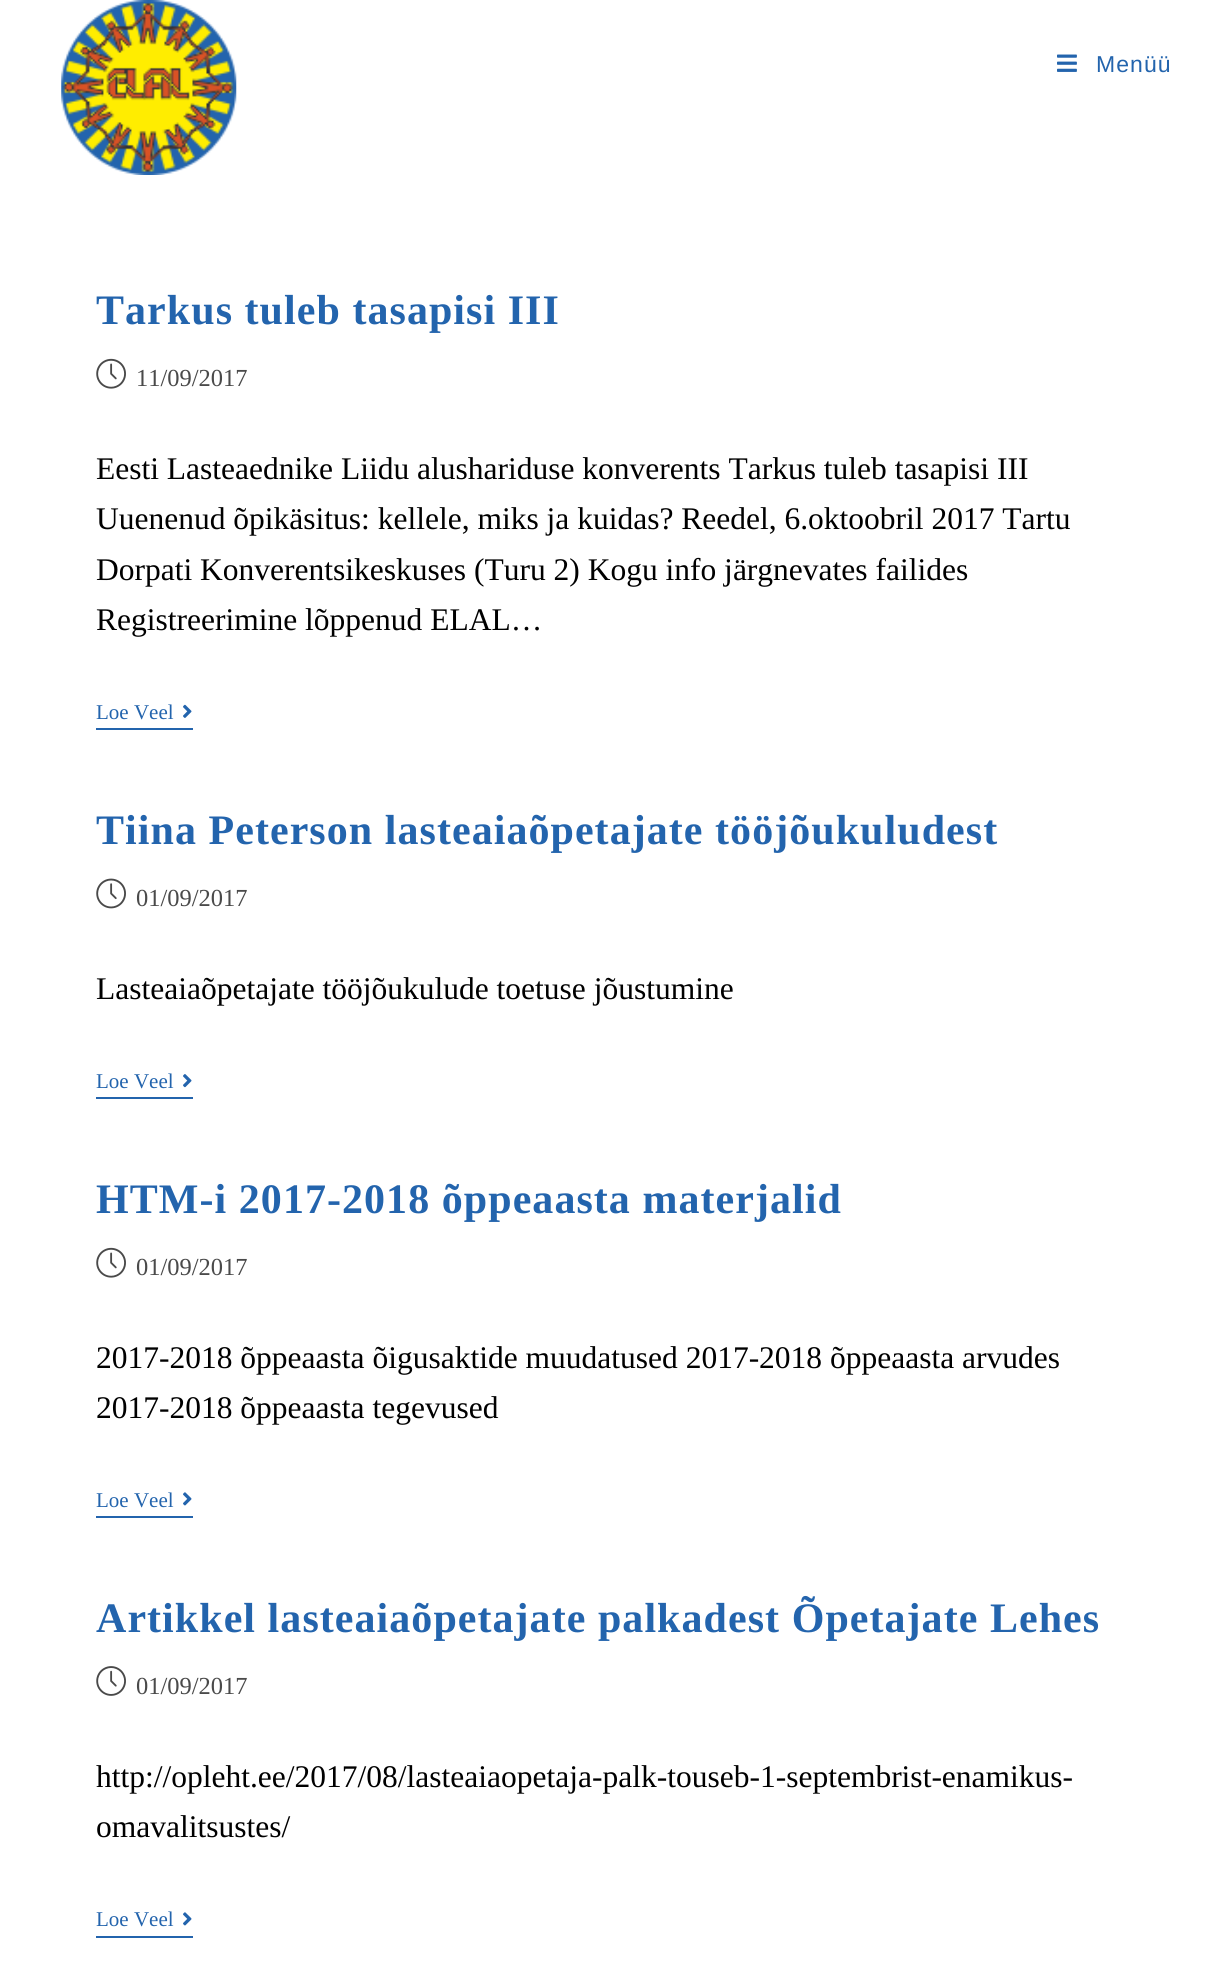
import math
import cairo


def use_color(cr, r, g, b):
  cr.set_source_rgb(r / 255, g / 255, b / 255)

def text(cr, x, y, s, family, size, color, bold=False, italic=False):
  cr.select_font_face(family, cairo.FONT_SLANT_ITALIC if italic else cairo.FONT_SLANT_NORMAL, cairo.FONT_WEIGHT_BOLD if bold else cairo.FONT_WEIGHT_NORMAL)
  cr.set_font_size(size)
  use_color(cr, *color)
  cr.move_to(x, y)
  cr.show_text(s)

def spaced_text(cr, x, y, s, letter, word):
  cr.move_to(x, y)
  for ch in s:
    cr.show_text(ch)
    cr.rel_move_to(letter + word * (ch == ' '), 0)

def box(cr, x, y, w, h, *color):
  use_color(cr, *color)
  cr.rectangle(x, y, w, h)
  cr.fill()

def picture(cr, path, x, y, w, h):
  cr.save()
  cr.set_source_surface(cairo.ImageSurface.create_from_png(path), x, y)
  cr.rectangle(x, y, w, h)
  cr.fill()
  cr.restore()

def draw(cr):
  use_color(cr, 255, 255, 255)
  cr.paint()
  picture(cr, "img_01.png", 61, 0, 176, 175)
  picture(cr, "img_02.png", 1057, 54, 20, 18)
  picture(cr, "img_03.png", 96, 358, 30, 31)
  box(cr, 96, 728, 97, 2, 35, 100, 173)
  picture(cr, "img_04.png", 183, 704, 9, 14)
  picture(cr, "img_05.png", 96, 878, 30, 31)
  box(cr, 96, 1097, 97, 2, 35, 100, 173)
  picture(cr, "img_06.png", 183, 1074, 9, 14)
  picture(cr, "img_03.png", 96, 1247, 30, 31)
  box(cr, 96, 1516, 97, 2, 35, 100, 173)
  picture(cr, "img_07.png", 183, 1492, 9, 14)
  picture(cr, "img_08.png", 96, 1666, 30, 30)
  box(cr, 96, 1936, 97, 2, 35, 100, 173)
  picture(cr, "img_07.png", 183, 1912, 9, 14)
  cr.select_font_face("Liberation Sans")
  cr.set_font_size(23)
  spaced_text(cr, 1096, 72, "Menüü", 1.05, 0)
  cr.select_font_face("Liberation Serif", cairo.FONT_SLANT_NORMAL, cairo.FONT_WEIGHT_BOLD)
  cr.set_font_size(42)
  spaced_text(cr, 96, 324, "Tarkus tuleb tasapisi III", 1.05, 0)
  text(cr, 136, 386, "11/09/2017", "Liberation Serif", 24.5, (74, 74, 74))
  text(cr, 96, 479, "Eesti Lasteaednike Liidu alushariduse konverents Tarkus tuleb tasapisi III", "Liberation Serif", 31.5, (0, 0, 0))
  text(cr, 96, 529, "Uuenenud õpikäsitus: kellele, miks ja kuidas? Reedel, 6.oktoobril 2017 Tartu", "Liberation Serif", 31.5, (0, 0, 0))
  text(cr, 96, 580, "Dorpati Konverentsikeskuses (Turu 2) Kogu info järgnevates failides", "Liberation Serif", 31.5, (0, 0, 0))
  text(cr, 96, 630, "Registreerimine lõppenud ELAL…", "Liberation Serif", 31.5, (0, 0, 0))
  text(cr, 96, 719, "Loe Veel", "Liberation Serif", 21, (35, 100, 173))
  cr.select_font_face("Liberation Serif", cairo.FONT_SLANT_NORMAL, cairo.FONT_WEIGHT_BOLD)
  cr.set_font_size(42)
  spaced_text(cr, 96, 844, "Tiina Peterson lasteaiaõpetajate tööjõukuludest", 1.05, 0)
  text(cr, 136, 906, "01/09/2017", "Liberation Serif", 24.5, (74, 74, 74))
  text(cr, 96, 999, "Lasteaiaõpetajate tööjõukulude toetuse jõustumine", "Liberation Serif", 31.5, (0, 0, 0))
  text(cr, 96, 1088, "Loe Veel", "Liberation Serif", 21, (35, 100, 173))
  cr.select_font_face("Liberation Serif", cairo.FONT_SLANT_NORMAL, cairo.FONT_WEIGHT_BOLD)
  cr.set_font_size(42)
  spaced_text(cr, 96, 1213, "HTM-i 2017-2018 õppeaasta materjalid", 1.05, 0)
  text(cr, 136, 1275, "01/09/2017", "Liberation Serif", 24.5, (74, 74, 74))
  text(cr, 96, 1368, "2017-2018 õppeaasta õigusaktide muudatused 2017-2018 õppeaasta arvudes", "Liberation Serif", 31.5, (0, 0, 0))
  text(cr, 96, 1418, "2017-2018 õppeaasta tegevused", "Liberation Serif", 31.5, (0, 0, 0))
  text(cr, 96, 1507, "Loe Veel", "Liberation Serif", 21, (35, 100, 173))
  cr.select_font_face("Liberation Serif", cairo.FONT_SLANT_NORMAL, cairo.FONT_WEIGHT_BOLD)
  cr.set_font_size(42)
  spaced_text(cr, 96, 1632, "Artikkel lasteaiaõpetajate palkadest Õpetajate Lehes", 1.05, 0)
  text(cr, 136, 1694, "01/09/2017", "Liberation Serif", 24.5, (74, 74, 74))
  text(cr, 96, 1787, "http://opleht.ee/2017/08/lasteaiaopetaja-palk-touseb-1-septembrist-enamikus-", "Liberation Serif", 31.5, (0, 0, 0))
  text(cr, 96, 1837, "omavalitsustes/", "Liberation Serif", 31.5, (0, 0, 0))
  text(cr, 96, 1926, "Loe Veel", "Liberation Serif", 21, (35, 100, 173))


surface = cairo.ImageSurface(cairo.FORMAT_RGB24, 1232, 1988)
cr = cairo.Context(surface)
options = cairo.FontOptions()
options.set_hint_metrics(cairo.HINT_METRICS_OFF)
options.set_hint_style(cairo.HINT_STYLE_NONE)
cr.set_font_options(options)
cr.set_miter_limit(4)
draw(cr)
surface.write_to_png("out.png")
